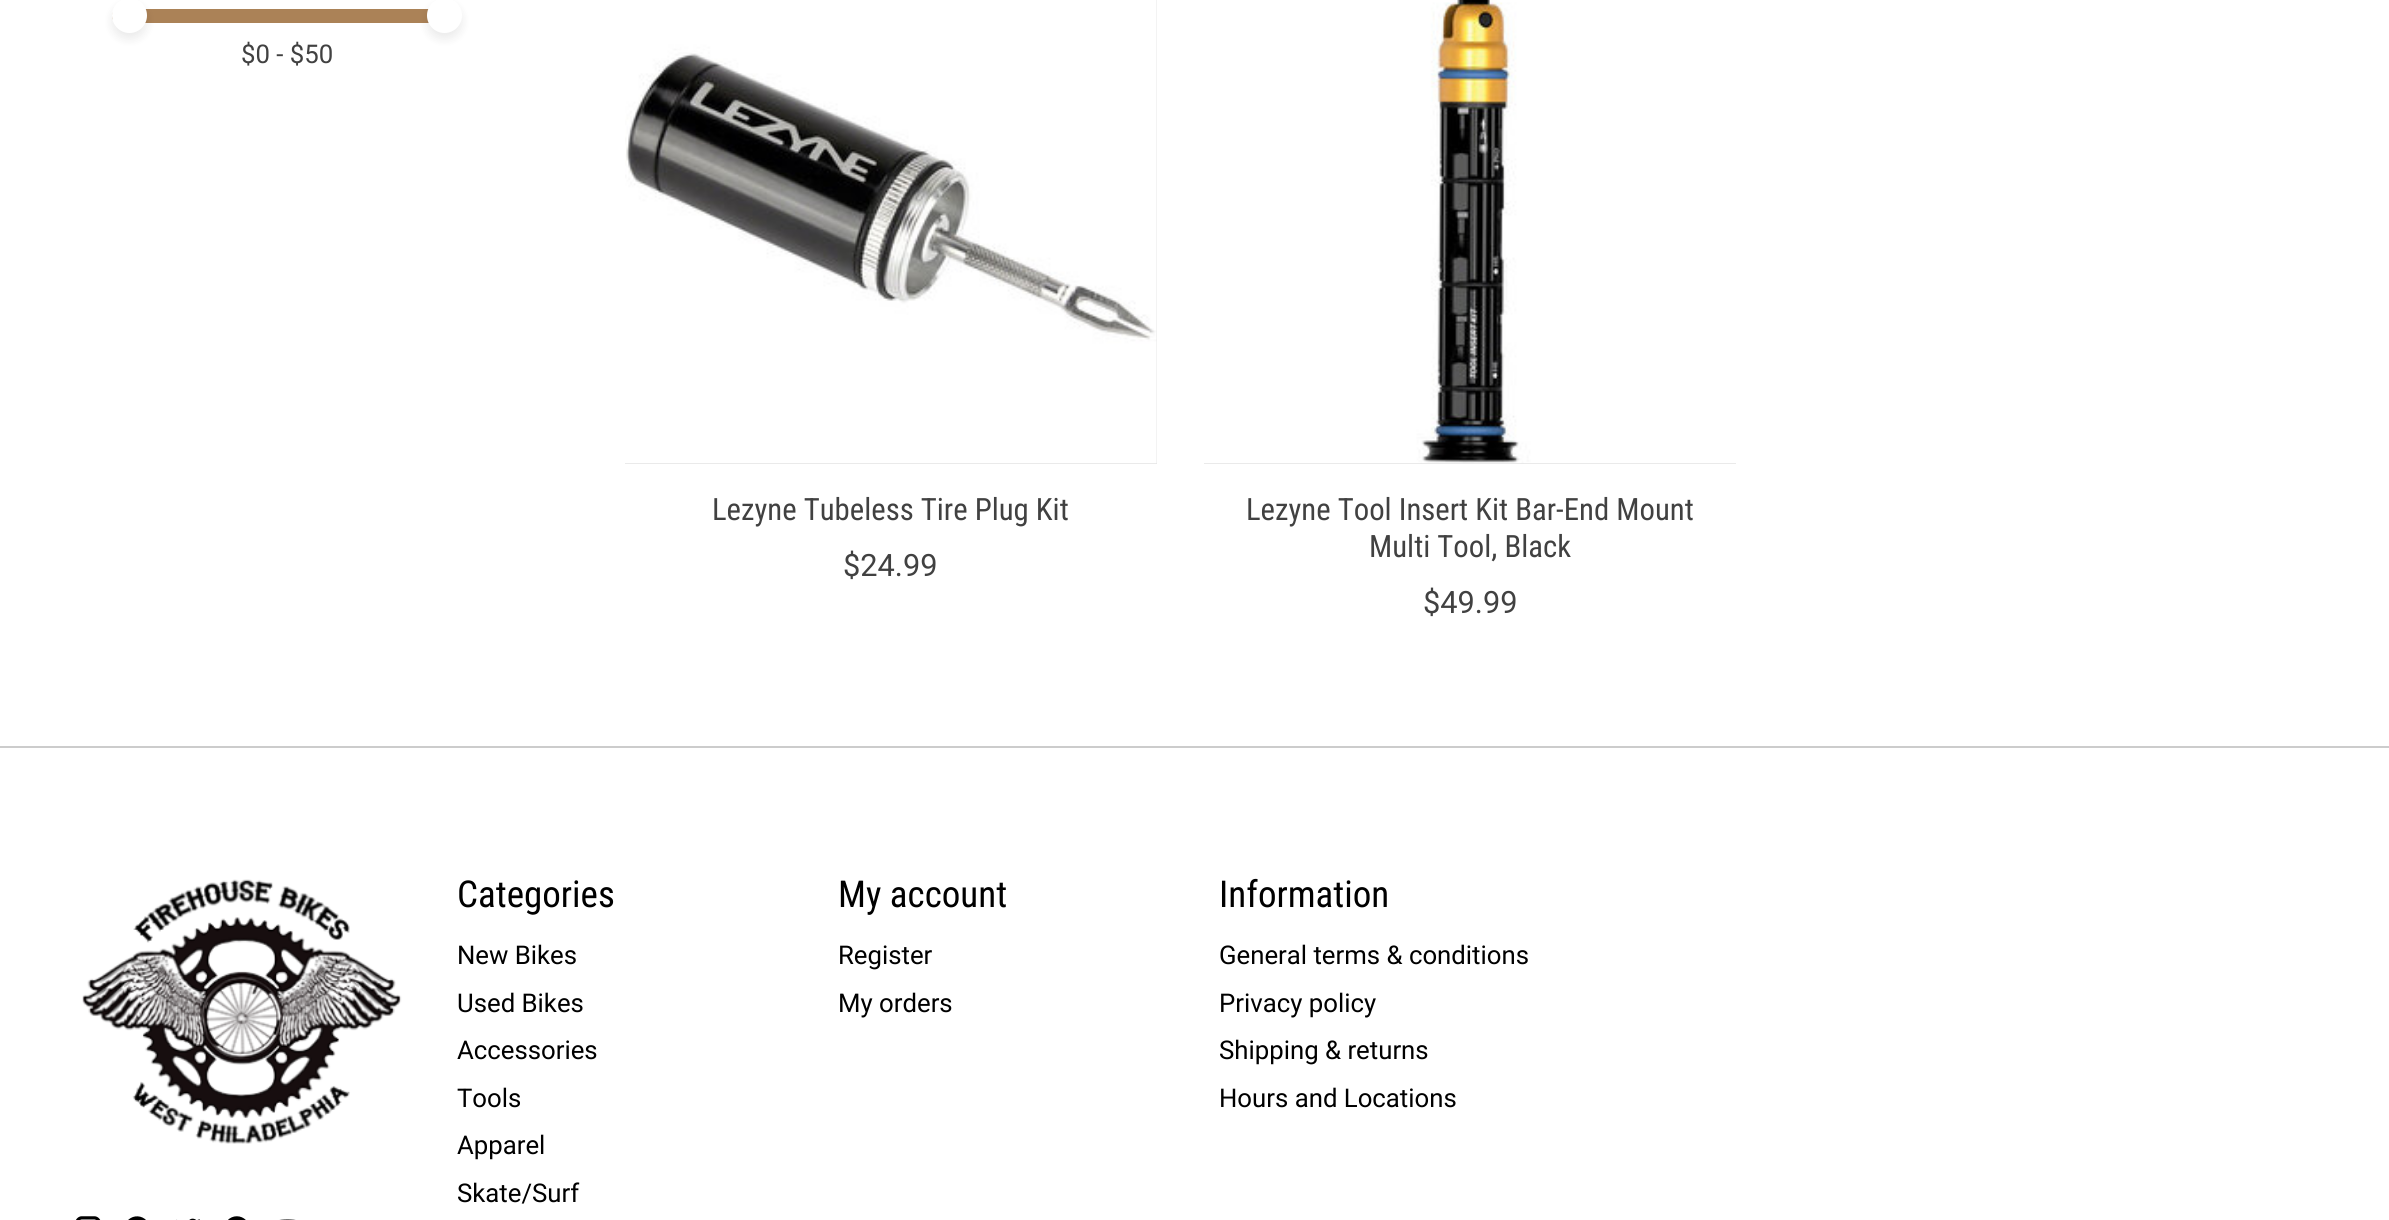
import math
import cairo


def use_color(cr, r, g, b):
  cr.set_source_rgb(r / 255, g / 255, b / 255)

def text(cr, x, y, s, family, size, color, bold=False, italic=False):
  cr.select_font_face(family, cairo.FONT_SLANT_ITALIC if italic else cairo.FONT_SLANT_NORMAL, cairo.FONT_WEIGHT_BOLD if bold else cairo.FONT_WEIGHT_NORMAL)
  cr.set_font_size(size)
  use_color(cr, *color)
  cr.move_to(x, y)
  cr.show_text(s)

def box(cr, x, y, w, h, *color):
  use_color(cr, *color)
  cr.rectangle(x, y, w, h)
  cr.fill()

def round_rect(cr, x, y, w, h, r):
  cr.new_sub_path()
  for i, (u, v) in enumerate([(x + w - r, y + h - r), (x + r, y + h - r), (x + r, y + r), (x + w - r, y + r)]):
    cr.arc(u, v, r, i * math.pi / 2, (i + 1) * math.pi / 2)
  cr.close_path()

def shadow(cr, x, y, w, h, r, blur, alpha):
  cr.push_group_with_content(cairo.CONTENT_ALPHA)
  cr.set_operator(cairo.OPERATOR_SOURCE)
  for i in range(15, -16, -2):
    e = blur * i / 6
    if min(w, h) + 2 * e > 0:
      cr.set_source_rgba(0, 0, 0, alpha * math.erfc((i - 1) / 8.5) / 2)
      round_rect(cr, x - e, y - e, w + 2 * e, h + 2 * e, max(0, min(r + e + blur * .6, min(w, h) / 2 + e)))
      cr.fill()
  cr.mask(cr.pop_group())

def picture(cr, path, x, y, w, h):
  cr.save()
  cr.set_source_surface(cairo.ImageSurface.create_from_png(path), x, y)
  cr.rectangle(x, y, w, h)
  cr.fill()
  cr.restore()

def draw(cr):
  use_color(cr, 255, 255, 255)
  cr.paint()
  use_color(cr, 171, 130, 87)
  cr.new_path()
  cr.move_to(119, 9)
  cr.line_to(445, 9)
  cr.line_to(445, 23)
  cr.line_to(119, 23)
  cr.curve_to(115, 23, 112, 20, 112, 16)
  cr.curve_to(112, 12, 115, 9, 119, 9)
  cr.close_path()
  cr.fill()
  use_color(cr, 0, 0, 0)
  shadow(cr, 112, 4, 35, 35, 17.5, 5, 0.08)
  use_color(cr, 255, 255, 255)
  cr.arc(129.5, 15.5, 17.5, 0, 2 * math.pi)
  cr.fill()
  use_color(cr, 0, 0, 0)
  shadow(cr, 427, 4, 35, 35, 17.5, 5, 0.08)
  use_color(cr, 255, 255, 255)
  cr.arc(444.5, 15.5, 17.5, 0, 2 * math.pi)
  cr.fill()
  box(cr, 625, 0, 532, 464, 227, 227, 227)
  picture(cr, "img_01.png", 625, 0, 532, 464)
  box(cr, 1204, 463, 532, 1, 227, 227, 227)
  picture(cr, "img_02.png", 1204, 0, 532, 464)
  box(cr, 0, 746, 2389, 2, 204, 204, 204)
  picture(cr, "img_03.png", 82, 879, 320, 265)
  picture(cr, "img_04.png", 76, 1216, 25, 4)
  picture(cr, "img_05.png", 128, 1216, 18, 4)
  picture(cr, "img_06.png", 176, 1218, 24, 2)
  picture(cr, "img_07.png", 228, 1216, 18, 4)
  picture(cr, "img_08.png", 279, 1219, 17, 1)
  text(cr, 241, 63, "$0 - $50", "Roboto", 25.75, (65, 65, 65))
  text(cr, 712, 520, "Lezyne Tubeless Tire Plug Kit", "Roboto Condensed", 30.75, (65, 65, 65))
  text(cr, 843, 576, "$24.99", "Roboto", 30.75, (65, 65, 65))
  text(cr, 1246, 520, "Lezyne Tool Insert Kit Bar-End Mount", "Roboto Condensed", 30.75, (65, 65, 65))
  text(cr, 1369, 557, "Multi Tool, Black", "Roboto Condensed", 30.75, (65, 65, 65))
  text(cr, 1423, 613, "$49.99", "Roboto", 30.75, (65, 65, 65))
  text(cr, 457, 907, "Categories", "Roboto Condensed", 37, (0, 0, 0))
  text(cr, 457, 964, "New Bikes", "Roboto", 25.75, (0, 0, 0))
  text(cr, 457, 1012, "Used Bikes", "Roboto", 25.75, (0, 0, 0))
  text(cr, 457, 1059, "Accessories", "Roboto", 25.75, (0, 0, 0))
  text(cr, 457, 1107, "Tools", "Roboto", 25.75, (0, 0, 0))
  text(cr, 457, 1154, "Apparel", "Roboto", 25.75, (0, 0, 0))
  text(cr, 457, 1202, "Skate/Surf", "Roboto", 25.75, (0, 0, 0))
  text(cr, 838, 907, "My account", "Roboto Condensed", 37, (0, 0, 0))
  text(cr, 838, 964, "Register", "Roboto", 25.75, (0, 0, 0))
  text(cr, 838, 1012, "My orders", "Roboto", 25.75, (0, 0, 0))
  text(cr, 1219, 907, "Information", "Roboto Condensed", 37, (0, 0, 0))
  text(cr, 1219, 964, "General terms & conditions", "Roboto", 25.75, (0, 0, 0))
  text(cr, 1219, 1012, "Privacy policy", "Roboto", 25.75, (0, 0, 0))
  text(cr, 1219, 1059, "Shipping & returns", "Roboto", 25.75, (0, 0, 0))
  text(cr, 1219, 1107, "Hours and Locations", "Roboto", 25.75, (0, 0, 0))


surface = cairo.ImageSurface(cairo.FORMAT_RGB24, 2389, 1220)
cr = cairo.Context(surface)
options = cairo.FontOptions()
options.set_hint_metrics(cairo.HINT_METRICS_OFF)
options.set_hint_style(cairo.HINT_STYLE_NONE)
cr.set_font_options(options)
cr.set_miter_limit(4)
draw(cr)
surface.write_to_png("out.png")
